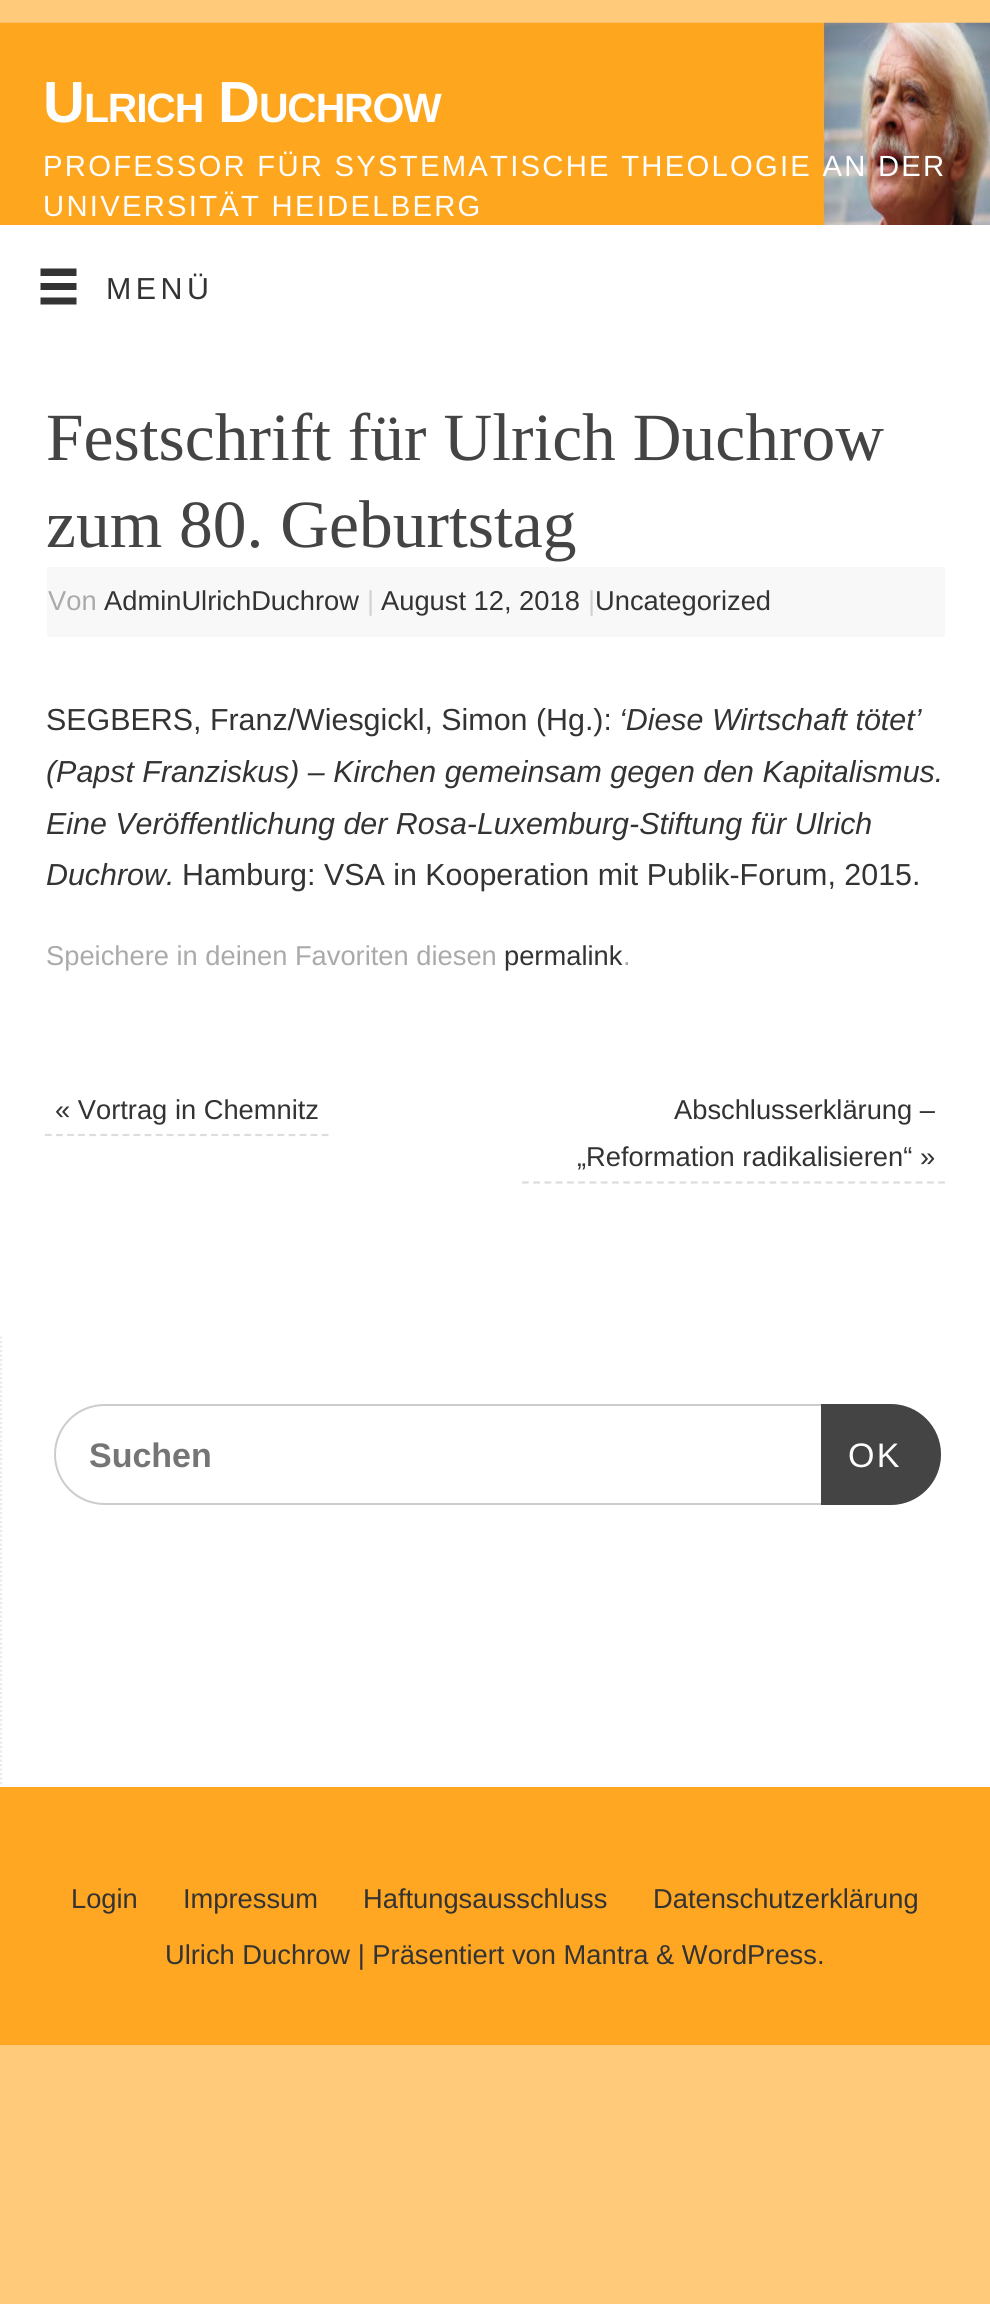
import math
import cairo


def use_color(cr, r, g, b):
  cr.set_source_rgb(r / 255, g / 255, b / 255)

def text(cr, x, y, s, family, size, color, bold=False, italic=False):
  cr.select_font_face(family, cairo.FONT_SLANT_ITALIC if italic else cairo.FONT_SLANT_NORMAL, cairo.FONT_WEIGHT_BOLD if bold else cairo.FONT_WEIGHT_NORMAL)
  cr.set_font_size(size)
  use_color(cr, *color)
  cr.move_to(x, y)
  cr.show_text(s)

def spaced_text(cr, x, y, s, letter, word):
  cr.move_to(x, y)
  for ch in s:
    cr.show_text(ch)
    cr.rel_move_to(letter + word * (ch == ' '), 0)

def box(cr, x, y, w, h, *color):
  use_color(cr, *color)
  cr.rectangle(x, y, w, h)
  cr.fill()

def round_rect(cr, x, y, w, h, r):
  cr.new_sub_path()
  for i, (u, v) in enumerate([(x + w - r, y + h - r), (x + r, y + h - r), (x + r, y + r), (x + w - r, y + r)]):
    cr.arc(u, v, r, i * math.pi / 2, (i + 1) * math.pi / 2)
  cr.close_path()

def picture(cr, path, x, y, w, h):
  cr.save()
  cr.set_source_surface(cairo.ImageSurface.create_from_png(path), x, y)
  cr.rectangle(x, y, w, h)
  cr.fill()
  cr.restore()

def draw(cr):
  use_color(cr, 255, 202, 121)
  cr.paint()
  picture(cr, "img_01.png", 0, 22, 990, 203)
  box(cr, 0, 225, 990, 1562, 255, 255, 255)
  use_color(cr, 51, 51, 51)
  cr.new_path()
  cr.move_to(40.5, 268.5)
  cr.line_to(40.5, 276)
  cr.line_to(76.5, 276)
  cr.line_to(76.5, 268.5)
  cr.close_path()
  cr.move_to(40.5, 283)
  cr.line_to(40.5, 290)
  cr.line_to(76.5, 290)
  cr.line_to(76.5, 283)
  cr.close_path()
  cr.move_to(40.5, 297.5)
  cr.line_to(40.5, 304.5)
  cr.line_to(76.5, 304.5)
  cr.line_to(76.5, 297.5)
  cr.close_path()
  cr.fill()
  box(cr, 47, 567, 898, 70, 248, 248, 248)
  cr.new_path()
  cr.move_to(45, 1135)
  cr.line_to(328.5, 1135)
  use_color(cr, 221, 221, 221)
  cr.set_line_width(2.2)
  cr.set_dash([6.75, 4.32])
  cr.stroke()
  cr.new_path()
  cr.move_to(522, 1182.5)
  cr.line_to(945, 1182.5)
  cr.set_dash([6.75, 4.5])
  cr.stroke()
  cr.new_path()
  cr.move_to(1, 1336.5)
  cr.line_to(1, 1786.5)
  use_color(cr, 234, 234, 234)
  cr.set_dash([2.25, 2.25])
  cr.stroke()
  round_rect(cr, 55, 1405, 885, 99, 49.5)
  use_color(cr, 204, 204, 204)
  cr.set_line_width(2)
  cr.set_dash([])
  cr.stroke()
  use_color(cr, 68, 68, 68)
  cr.new_path()
  cr.move_to(821, 1404)
  cr.line_to(890.5, 1404)
  cr.curve_to(918.5, 1404, 941, 1426.5, 941, 1454.5)
  cr.curve_to(941, 1482.5, 918.5, 1505, 890.5, 1505)
  cr.line_to(821, 1505)
  cr.close_path()
  cr.fill()
  box(cr, 0, 1787, 990, 258, 255, 167, 34)
  cr.select_font_face("Liberation Sans", cairo.FONT_SLANT_NORMAL, cairo.FONT_WEIGHT_BOLD)
  cr.set_font_size(58)
  use_color(cr, 255, 255, 255)
  spaced_text(cr, 43, 122, "U", -1.25, 0)
  cr.set_font_size(41)
  spaced_text(cr, 84, 122, "LRICH", -1.25, 0)
  cr.set_font_size(58)
  spaced_text(cr, 218, 122, "D", -1.25, 0)
  cr.set_font_size(41)
  spaced_text(cr, 259, 122, "UCHROW", -1.25, 0)
  cr.select_font_face("Liberation Sans")
  cr.set_font_size(29.25)
  spaced_text(cr, 43, 176, "PROFESSOR FÜR SYSTEMATISCHE THEOLOGIE AN DER", 2.25, 0)
  spaced_text(cr, 43, 216, "UNIVERSITÄT HEIDELBERG", 2.25, 0)
  cr.set_font_size(30.4)
  use_color(cr, 51, 51, 51)
  spaced_text(cr, 106, 299, "MENÜ", 4.5, 0)
  text(cr, 46, 460, "Festschrift für Ulrich Duchrow", "Liberation Serif", 67.5, (68, 68, 68))
  text(cr, 46, 547, "zum 80. Geburtstag", "Liberation Serif", 67.5, (68, 68, 68))
  text(cr, 48, 610, "Von", "Liberation Sans", 27.3, (170, 170, 170))
  text(cr, 104, 610, "AdminUlrichDuchrow", "Liberation Sans", 27.3, (51, 51, 51))
  text(cr, 367, 610, "|", "Liberation Sans", 27.3, (209, 209, 209))
  text(cr, 381, 610, "August 12, 2018", "Liberation Sans", 27.3, (51, 51, 51))
  text(cr, 588, 610, "|", "Liberation Sans", 27.3, (209, 209, 209))
  text(cr, 595, 610, "Uncategorized", "Liberation Sans", 27.3, (51, 51, 51))
  text(cr, 46, 730, "SEGBERS, Franz/Wiesgickl, Simon (Hg.):", "Liberation Sans", 30.4, (51, 51, 51))
  text(cr, 619, 730, "‘Diese Wirtschaft tötet’", "Liberation Sans", 30.4, (51, 51, 51), italic=True)
  text(cr, 46, 782, "(Papst Franziskus) – Kirchen gemeinsam gegen den Kapitalismus.", "Liberation Sans", 30.4, (51, 51, 51), italic=True)
  text(cr, 46, 834, "Eine Veröffentlichung der Rosa-Luxemburg-Stiftung für Ulrich", "Liberation Sans", 30.4, (51, 51, 51), italic=True)
  text(cr, 46, 885, "Duchrow.", "Liberation Sans", 30.4, (51, 51, 51), italic=True)
  text(cr, 182, 885, "Hamburg: VSA in Kooperation mit Publik-Forum, 2015.", "Liberation Sans", 30.4, (51, 51, 51))
  text(cr, 46, 965, "Speichere in deinen Favoriten diesen", "Liberation Sans", 27.3, (170, 170, 170))
  text(cr, 504, 965, "permalink", "Liberation Sans", 27.3, (51, 51, 51))
  text(cr, 623, 965, ".", "Liberation Sans", 27.3, (170, 170, 170))
  text(cr, 55, 1119, "« Vortrag in Chemnitz", "Liberation Sans", 27.3, (51, 51, 51))
  text(cr, 674, 1119, "Abschlusserklärung –", "Liberation Sans", 27.3, (51, 51, 51))
  text(cr, 577, 1166, "„Reformation radikalisieren“ »", "Liberation Sans", 27.3, (51, 51, 51))
  text(cr, 89, 1467, "Suchen", "Liberation Sans", 34, (117, 117, 117), bold=True)
  cr.select_font_face("Liberation Sans")
  use_color(cr, 255, 255, 255)
  spaced_text(cr, 848, 1467, "OK", 2.25, 0)
  text(cr, 71, 1908, "Login", "Liberation Sans", 27.3, (51, 51, 51))
  text(cr, 183, 1908, "Impressum", "Liberation Sans", 27.3, (51, 51, 51))
  text(cr, 363, 1908, "Haftungsausschluss", "Liberation Sans", 27.3, (51, 51, 51))
  text(cr, 653, 1908, "Datenschutzerklärung", "Liberation Sans", 27.3, (51, 51, 51))
  text(cr, 165, 1964, "Ulrich Duchrow | Präsentiert von Mantra & WordPress.", "Liberation Sans", 27.3, (51, 51, 51))


surface = cairo.ImageSurface(cairo.FORMAT_RGB24, 990, 2304)
cr = cairo.Context(surface)
options = cairo.FontOptions()
options.set_hint_metrics(cairo.HINT_METRICS_OFF)
options.set_hint_style(cairo.HINT_STYLE_NONE)
cr.set_font_options(options)
cr.set_miter_limit(4)
draw(cr)
surface.write_to_png("out.png")
